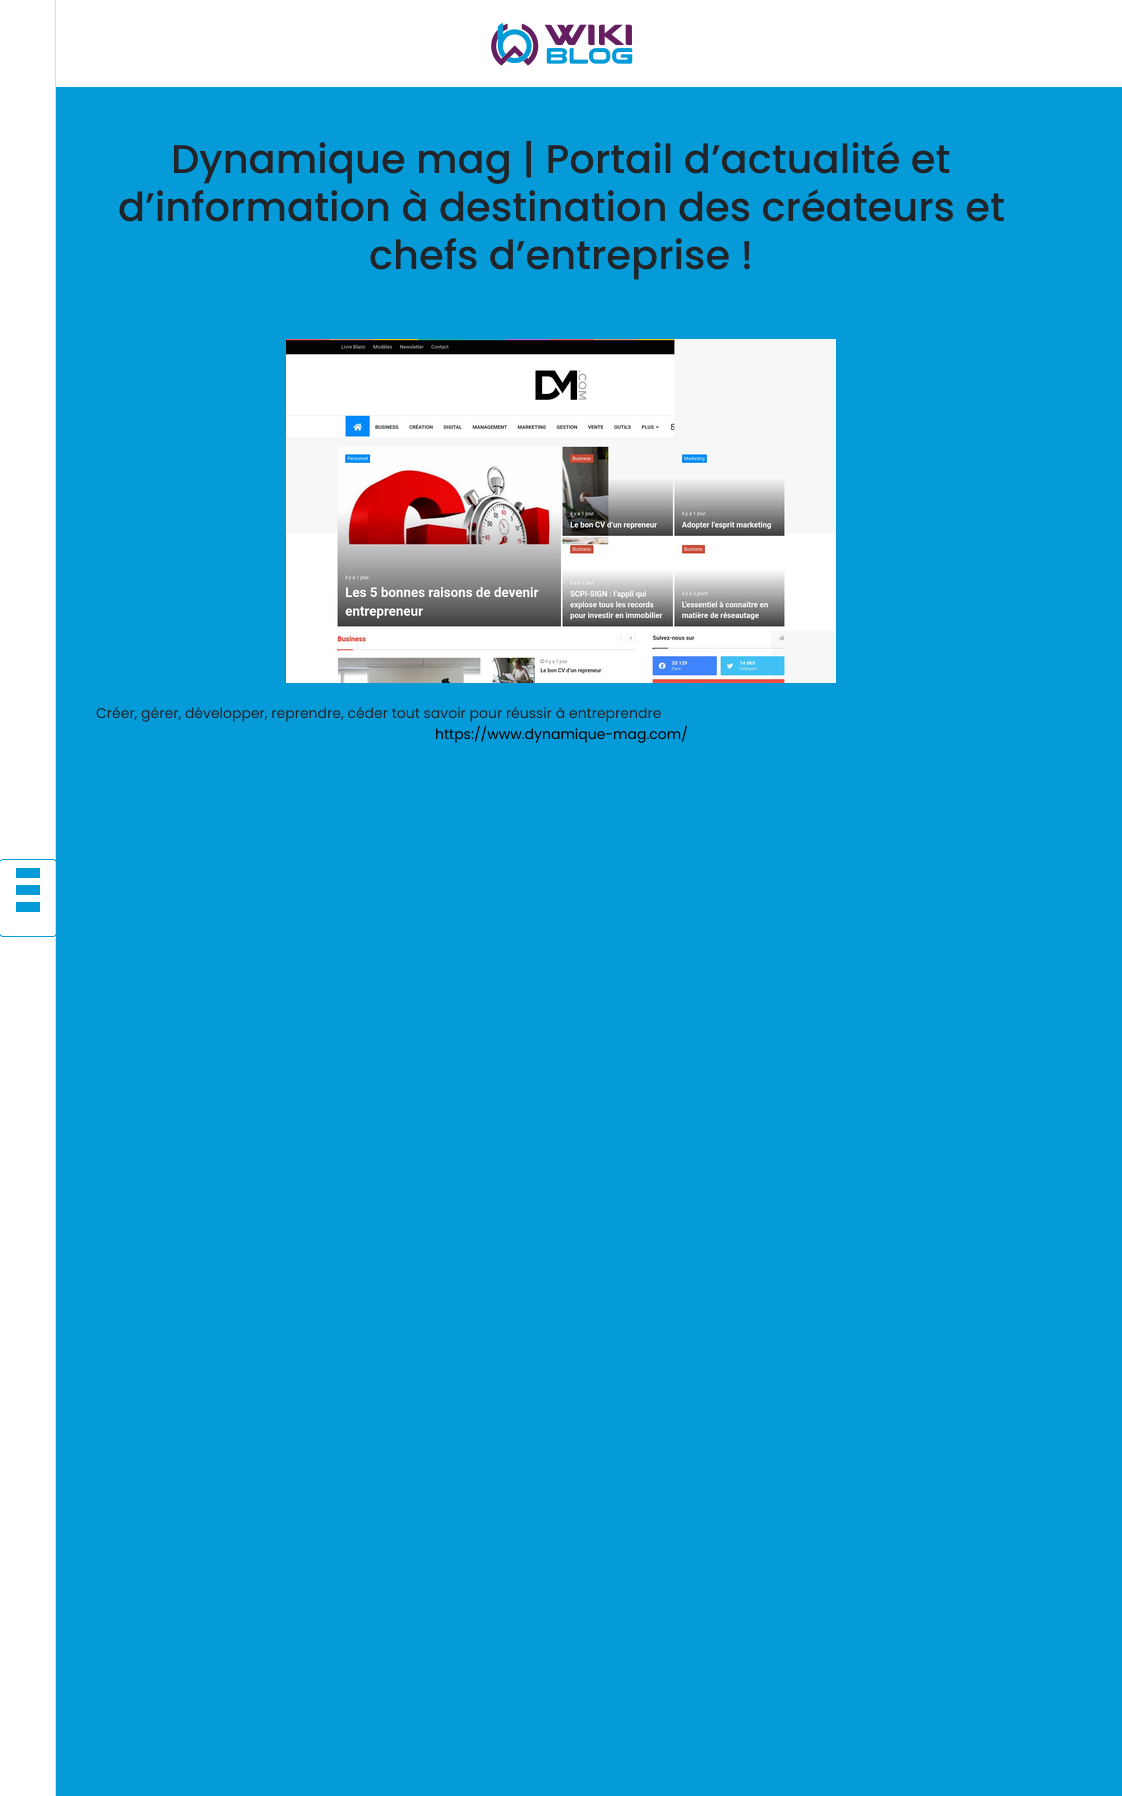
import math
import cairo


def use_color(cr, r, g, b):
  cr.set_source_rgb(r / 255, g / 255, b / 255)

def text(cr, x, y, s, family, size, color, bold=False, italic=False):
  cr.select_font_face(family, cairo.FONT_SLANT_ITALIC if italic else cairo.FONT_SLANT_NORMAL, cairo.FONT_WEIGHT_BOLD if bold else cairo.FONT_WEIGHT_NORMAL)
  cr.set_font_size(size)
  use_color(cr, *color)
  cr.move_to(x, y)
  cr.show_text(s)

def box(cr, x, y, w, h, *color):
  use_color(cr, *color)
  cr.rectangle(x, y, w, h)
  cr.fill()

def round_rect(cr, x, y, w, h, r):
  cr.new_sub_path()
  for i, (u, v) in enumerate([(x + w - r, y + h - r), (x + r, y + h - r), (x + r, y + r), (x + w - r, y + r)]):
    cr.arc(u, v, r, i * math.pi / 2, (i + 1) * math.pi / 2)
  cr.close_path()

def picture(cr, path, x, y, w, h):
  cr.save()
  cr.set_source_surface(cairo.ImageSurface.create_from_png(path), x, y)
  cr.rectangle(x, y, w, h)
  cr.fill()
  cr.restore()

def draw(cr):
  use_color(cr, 4, 155, 216)
  cr.paint()
  box(cr, 56, 0, 1066, 87, 255, 255, 255)
  box(cr, 0, 0, 55, 1796, 255, 255, 255)
  box(cr, 55, 0, 1, 1796, 221, 221, 221)
  round_rect(cr, -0.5, 859.5, 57, 77, 3.5)
  use_color(cr, 4, 155, 216)
  cr.set_line_width(1)
  cr.stroke()
  box(cr, 16, 868, 24, 10, 4, 155, 216)
  box(cr, 16, 885, 24, 10, 4, 155, 216)
  box(cr, 16, 902, 24, 10, 4, 155, 216)
  picture(cr, "img_01.png", 491, 22, 142, 44)
  picture(cr, "img_02.png", 286, 339, 550, 344)
  text(cr, 171, 173, "Dynamique mag | Portail d’actualité et", "Poppins Medium", 40, (33, 37, 41))
  text(cr, 118, 221, "d’information à destination des créateurs et", "Poppins Medium", 40, (33, 37, 41))
  text(cr, 369, 269, "chefs d’entreprise !", "Poppins Medium", 40, (33, 37, 41))
  text(cr, 96, 718, "Créer, gérer, développer, reprendre, céder tout savoir pour réussir à entreprendre", "Poppins", 14, (33, 37, 41))
  text(cr, 435, 739, "https://www.dynamique-mag.com/", "Poppins", 14, (0, 0, 0))


surface = cairo.ImageSurface(cairo.FORMAT_RGB24, 1122, 1796)
cr = cairo.Context(surface)
options = cairo.FontOptions()
options.set_hint_metrics(cairo.HINT_METRICS_OFF)
options.set_hint_style(cairo.HINT_STYLE_NONE)
cr.set_font_options(options)
cr.set_miter_limit(4)
draw(cr)
surface.write_to_png("out.png")
